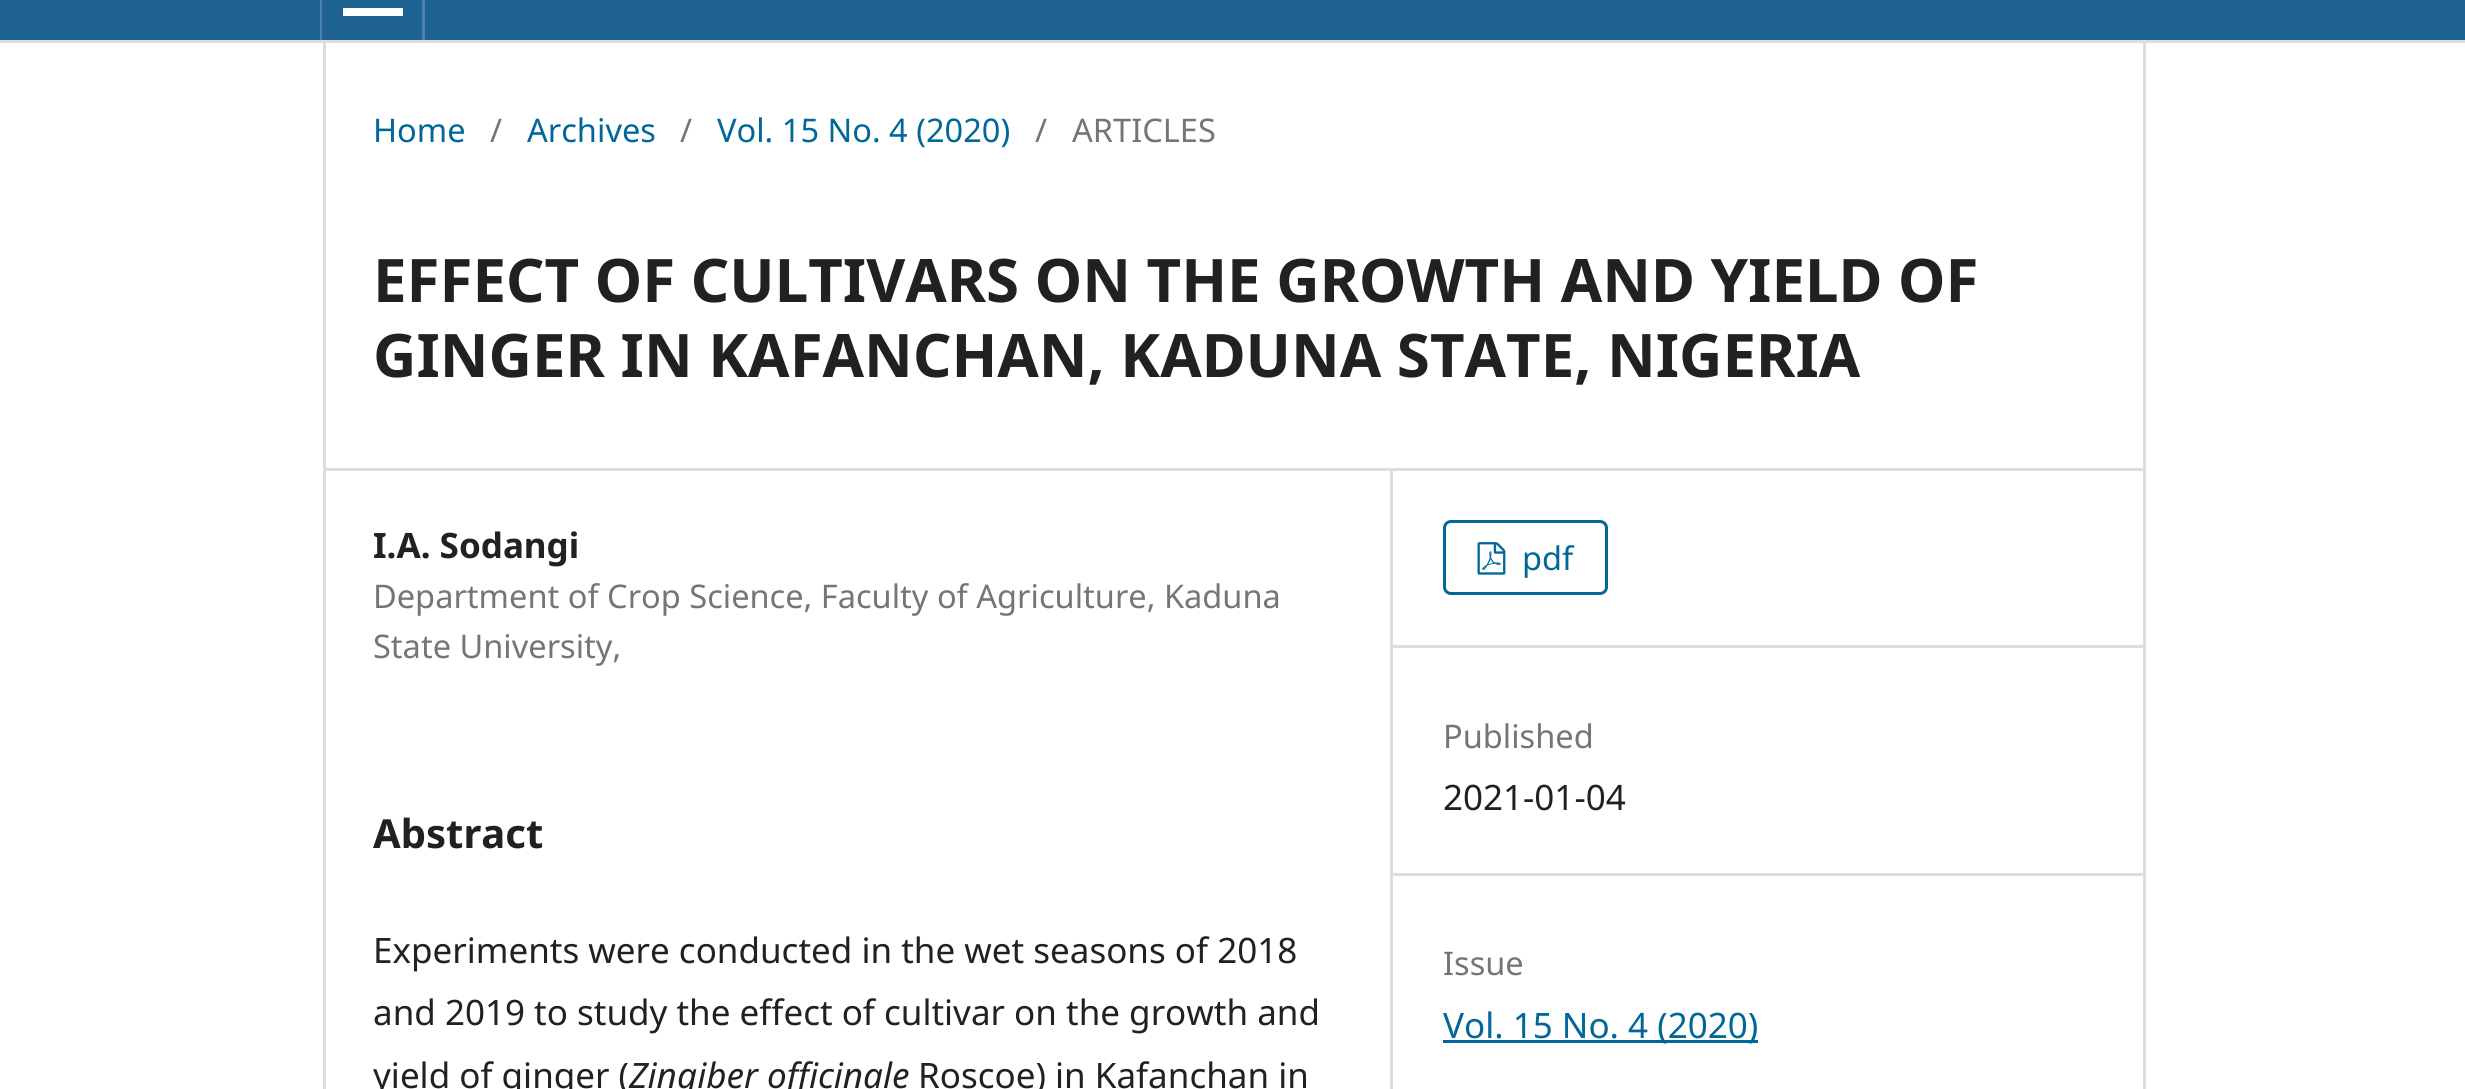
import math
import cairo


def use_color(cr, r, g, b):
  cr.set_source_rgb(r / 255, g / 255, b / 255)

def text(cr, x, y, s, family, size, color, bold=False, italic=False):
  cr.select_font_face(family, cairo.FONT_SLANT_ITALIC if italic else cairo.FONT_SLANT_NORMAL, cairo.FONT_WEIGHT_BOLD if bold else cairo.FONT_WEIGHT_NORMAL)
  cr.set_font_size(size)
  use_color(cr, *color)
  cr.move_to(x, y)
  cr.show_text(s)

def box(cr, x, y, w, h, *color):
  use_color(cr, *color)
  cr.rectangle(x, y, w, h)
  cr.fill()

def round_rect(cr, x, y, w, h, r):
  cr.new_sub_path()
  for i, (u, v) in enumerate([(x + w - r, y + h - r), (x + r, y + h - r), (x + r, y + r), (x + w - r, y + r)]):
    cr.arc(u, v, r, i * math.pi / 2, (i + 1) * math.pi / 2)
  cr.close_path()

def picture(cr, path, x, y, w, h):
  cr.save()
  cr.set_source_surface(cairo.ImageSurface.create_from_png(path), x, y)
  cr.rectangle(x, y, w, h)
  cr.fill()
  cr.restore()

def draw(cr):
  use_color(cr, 255, 255, 255)
  cr.paint()
  box(cr, 0, 0, 2465, 40, 30, 98, 146)
  box(cr, 0, 40, 2465, 3, 221, 221, 221)
  box(cr, 320, 0, 2, 40, 75, 129, 168)
  box(cr, 422, 0, 3, 40, 75, 129, 168)
  box(cr, 343, 8, 60, 8, 255, 255, 255)
  box(cr, 323, 468, 1820, 3, 221, 221, 221)
  box(cr, 323, 43, 3, 1046, 221, 221, 221)
  box(cr, 1390, 470, 3, 619, 221, 221, 221)
  box(cr, 1393, 645, 750, 3, 221, 221, 221)
  round_rect(cr, 1444.5, 521.5, 162, 72, 6.5)
  use_color(cr, 0, 103, 152)
  cr.set_line_width(3)
  cr.stroke()
  picture(cr, "img_01.png", 1477, 542, 29, 33)
  box(cr, 1393, 873, 750, 3, 221, 221, 221)
  box(cr, 1443, 1040, 315, 3, 0, 103, 152)
  box(cr, 2143, 43, 3, 1046, 221, 221, 221)
  text(cr, 373, 142, "Home", "Noto Sans", 32.55, (0, 103, 152))
  text(cr, 490, 142, "/", "Noto Sans", 32.55, (117, 117, 117))
  text(cr, 527, 142, "Archives", "Noto Sans", 32.55, (0, 103, 152))
  text(cr, 680, 142, "/", "Noto Sans", 32.55, (117, 117, 117))
  text(cr, 717, 142, "Vol. 15 No. 4 (2020)", "Noto Sans", 32.55, (0, 103, 152))
  text(cr, 1035, 142, "/", "Noto Sans", 32.55, (117, 117, 117))
  text(cr, 1072, 142, "ARTICLES", "Noto Sans", 32.55, (117, 117, 117))
  text(cr, 373, 302, "EFFECT OF CULTIVARS ON THE GROWTH AND YIELD OF", "Noto Sans", 60, (33, 33, 33), bold=True)
  text(cr, 373, 377, "GINGER IN KAFANCHAN, KADUNA STATE, NIGERIA", "Noto Sans", 60, (33, 33, 33), bold=True)
  text(cr, 373, 558, "I.A. Sodangi", "Noto Sans", 35, (33, 33, 33), bold=True)
  text(cr, 373, 608, "Department of Crop Science, Faculty of Agriculture, Kaduna", "Noto Sans", 32.55, (117, 117, 117))
  text(cr, 373, 658, "State University,", "Noto Sans", 32.55, (117, 117, 117))
  text(cr, 373, 848, "Abstract", "Noto Sans", 40, (33, 33, 33), bold=True)
  text(cr, 373, 963, "Experiments were conducted in the wet seasons of 2018", "Noto Sans", 35, (33, 33, 33))
  text(cr, 373, 1025, "and 2019 to study the effect of cultivar on the growth and", "Noto Sans", 35, (33, 33, 33))
  text(cr, 373, 1088, "yield of ginger (", "Noto Sans", 35, (33, 33, 33))
  text(cr, 629, 1088, "Zingiber officinale", "Noto Sans", 35, (33, 33, 33), italic=True)
  text(cr, 918, 1088, "Roscoe) in Kafanchan in", "Noto Sans", 35, (33, 33, 33))
  text(cr, 1522, 570, "pdf", "Noto Sans", 32.55, (0, 103, 152))
  text(cr, 1443, 748, "Published", "Noto Sans", 32.55, (117, 117, 117))
  text(cr, 1443, 810, "2021-01-04", "Noto Sans", 35, (33, 33, 33))
  text(cr, 1443, 975, "Issue", "Noto Sans", 32.55, (117, 117, 117))
  text(cr, 1443, 1038, "Vol. 15 No. 4 (2020)", "Noto Sans", 35, (0, 103, 152))


surface = cairo.ImageSurface(cairo.FORMAT_RGB24, 2465, 1089)
cr = cairo.Context(surface)
options = cairo.FontOptions()
options.set_hint_metrics(cairo.HINT_METRICS_OFF)
options.set_hint_style(cairo.HINT_STYLE_NONE)
cr.set_font_options(options)
cr.set_miter_limit(4)
draw(cr)
surface.write_to_png("out.png")
